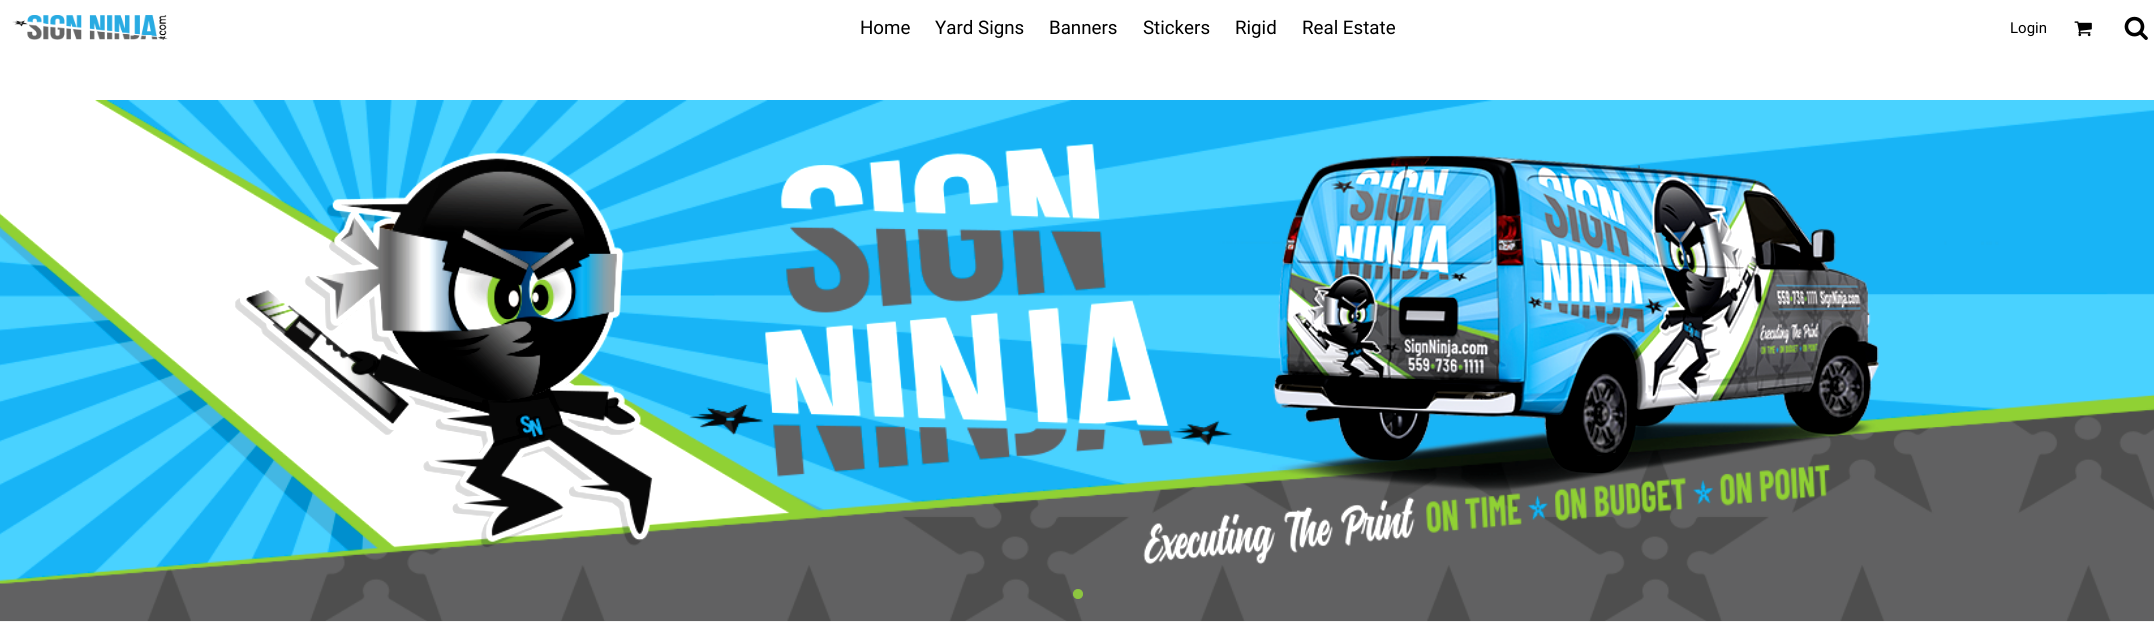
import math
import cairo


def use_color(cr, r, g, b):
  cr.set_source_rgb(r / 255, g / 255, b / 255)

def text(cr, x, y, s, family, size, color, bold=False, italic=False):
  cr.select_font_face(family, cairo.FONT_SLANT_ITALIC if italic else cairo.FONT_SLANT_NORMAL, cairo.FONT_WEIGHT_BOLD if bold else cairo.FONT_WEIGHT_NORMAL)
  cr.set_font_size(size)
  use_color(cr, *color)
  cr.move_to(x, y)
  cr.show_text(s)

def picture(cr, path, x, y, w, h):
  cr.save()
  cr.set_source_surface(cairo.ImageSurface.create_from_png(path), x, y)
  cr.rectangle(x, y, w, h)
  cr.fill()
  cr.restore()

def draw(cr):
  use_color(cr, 255, 255, 255)
  cr.paint()
  picture(cr, "img_01.png", 12, 15, 156, 25)
  picture(cr, "img_02.png", 2074, 21, 18, 16)
  picture(cr, "img_03.png", 2124, 16, 24, 24)
  picture(cr, "img_04.png", 0, 100, 2154, 522)
  use_color(cr, 141, 198, 64)
  cr.arc(1078, 594, 4.5, 0, 2 * math.pi)
  cr.fill_preserve()
  cr.set_line_width(1)
  cr.stroke()
  text(cr, 860, 34, "Home", "Roboto", 18.75, (0, 0, 0))
  text(cr, 935, 34, "Yard Signs", "Roboto", 18.75, (0, 0, 0))
  text(cr, 1049, 34, "Banners", "Roboto", 18.75, (0, 0, 0))
  text(cr, 1143, 34, "Stickers", "Roboto", 18.75, (0, 0, 0))
  text(cr, 1235, 34, "Rigid", "Roboto", 18.75, (0, 0, 0))
  text(cr, 1302, 34, "Real Estate", "Roboto", 18.75, (0, 0, 0))
  text(cr, 2010, 33, "Login", "Roboto", 15, (0, 0, 0))


surface = cairo.ImageSurface(cairo.FORMAT_RGB24, 2154, 633)
cr = cairo.Context(surface)
options = cairo.FontOptions()
options.set_hint_metrics(cairo.HINT_METRICS_OFF)
options.set_hint_style(cairo.HINT_STYLE_NONE)
cr.set_font_options(options)
cr.set_miter_limit(4)
draw(cr)
surface.write_to_png("out.png")
